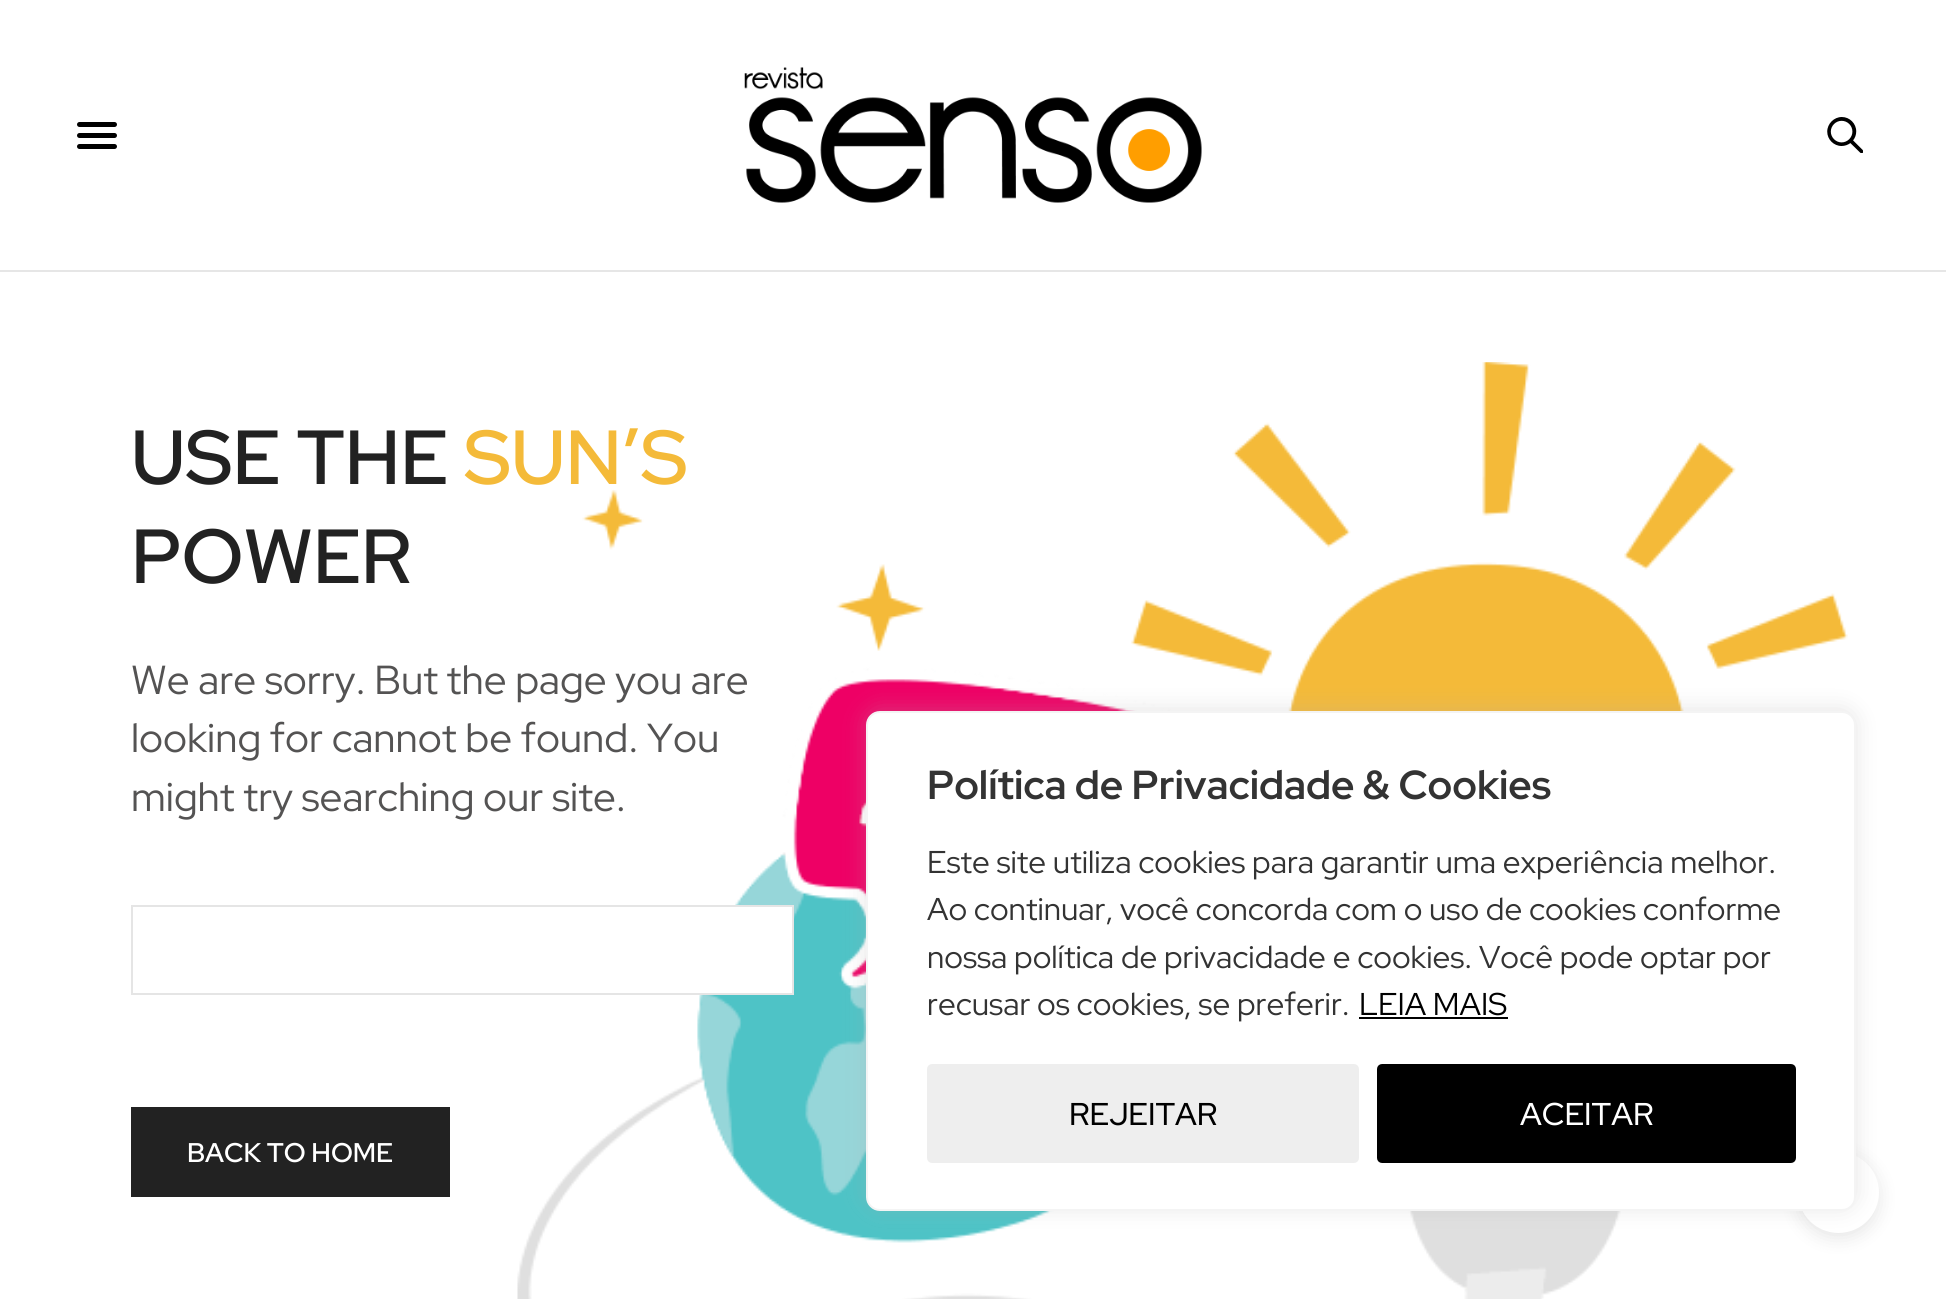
import math
import cairo


def use_color(cr, r, g, b):
  cr.set_source_rgb(r / 255, g / 255, b / 255)

def text(cr, x, y, s, family, size, color, bold=False, italic=False):
  cr.select_font_face(family, cairo.FONT_SLANT_ITALIC if italic else cairo.FONT_SLANT_NORMAL, cairo.FONT_WEIGHT_BOLD if bold else cairo.FONT_WEIGHT_NORMAL)
  cr.set_font_size(size)
  use_color(cr, *color)
  cr.move_to(x, y)
  cr.show_text(s)

def box(cr, x, y, w, h, *color):
  use_color(cr, *color)
  cr.rectangle(x, y, w, h)
  cr.fill()

def round_rect(cr, x, y, w, h, r):
  cr.new_sub_path()
  for i, (u, v) in enumerate([(x + w - r, y + h - r), (x + r, y + h - r), (x + r, y + r), (x + w - r, y + r)]):
    cr.arc(u, v, r, i * math.pi / 2, (i + 1) * math.pi / 2)
  cr.close_path()

def shadow(cr, x, y, w, h, r, blur, alpha):
  cr.push_group_with_content(cairo.CONTENT_ALPHA)
  cr.set_operator(cairo.OPERATOR_SOURCE)
  for i in range(15, -16, -2):
    e = blur * i / 6
    if min(w, h) + 2 * e > 0:
      cr.set_source_rgba(0, 0, 0, alpha * math.erfc((i - 1) / 8.5) / 2)
      round_rect(cr, x - e, y - e, w + 2 * e, h + 2 * e, max(0, min(r + e + blur * .6, min(w, h) / 2 + e)))
      cr.fill()
  cr.mask(cr.pop_group())

def picture(cr, path, x, y, w, h):
  cr.save()
  cr.set_source_surface(cairo.ImageSurface.create_from_png(path), x, y)
  cr.rectangle(x, y, w, h)
  cr.fill()
  cr.restore()

def draw(cr):
  use_color(cr, 255, 255, 255)
  cr.paint()
  box(cr, 0, 270, 1946, 2, 230, 230, 230)
  use_color(cr, 0, 0, 0)
  round_rect(cr, 77, 122, 40, 5, 2.5)
  cr.fill()
  round_rect(cr, 77, 133, 40, 5, 2.5)
  cr.fill()
  round_rect(cr, 77, 144, 40, 5, 2.5)
  cr.fill()
  picture(cr, "img_01.png", 744, 67, 458, 136)
  picture(cr, "img_02.png", 1827, 117, 36, 36)
  picture(cr, "img_03.png", 517, 362, 1331, 937)
  box(cr, 699, 907, 93, 86, 255, 255, 255)
  cr.rectangle(132, 906, 661, 88)
  use_color(cr, 229, 229, 229)
  cr.stroke()
  box(cr, 131, 1107, 319, 90, 34, 34, 34)
  use_color(cr, 0, 0, 0)
  shadow(cr, 1798, 1157, 81, 81, 40.5, 9, 0.1)
  use_color(cr, 255, 255, 255)
  cr.arc(1838.5, 1192.5, 40.5, 0, 2 * math.pi)
  cr.fill()
  use_color(cr, 172, 171, 171)
  shadow(cr, 866, 709, 990, 499, 14, 11, 0.3)
  use_color(cr, 255, 255, 255)
  round_rect(cr, 867, 712, 988, 498, 13)
  cr.fill_preserve()
  use_color(cr, 244, 244, 244)
  cr.stroke()
  box(cr, 1359, 1017, 149, 2, 0, 0, 0)
  use_color(cr, 238, 238, 238)
  round_rect(cr, 929.5, 1066.5, 427, 94, 2.5)
  cr.fill_preserve()
  cr.set_line_width(5)
  cr.stroke()
  use_color(cr, 0, 0, 0)
  round_rect(cr, 1379.5, 1066.5, 414, 94, 2.5)
  cr.fill_preserve()
  cr.stroke()
  text(cr, 131, 484, "USE THE", "Red Hat Display SemiBold", 76.5, (34, 34, 34))
  text(cr, 464, 484, "SUN’S", "Red Hat Display SemiBold", 76.5, (244, 186, 57))
  text(cr, 131, 583, "POWER", "Red Hat Display SemiBold", 76.5, (34, 34, 34))
  text(cr, 131, 694, "We are sorry. But the page you are", "Red Hat Display", 40.5, (84, 83, 83))
  text(cr, 131, 752, "looking for cannot be found. You", "Red Hat Display", 40.5, (84, 83, 83))
  text(cr, 131, 811, "might try searching our site.", "Red Hat Display", 40.5, (84, 83, 83))
  text(cr, 187, 1162, "BACK TO HOME", "Red Hat Display SemiBold", 27, (255, 255, 255))
  text(cr, 927, 799, "Política de Privacidade & Cookies", "Red Hat Display", 40.5, (51, 51, 51), bold=True)
  text(cr, 927, 873, "Este site utiliza cookies para garantir uma experiência melhor.", "Red Hat Display", 31.5, (51, 51, 51))
  text(cr, 927, 920, "Ao continuar, você concorda com o uso de cookies conforme", "Red Hat Display", 31.5, (51, 51, 51))
  text(cr, 927, 968, "nossa política de privacidade e cookies. Você pode optar por", "Red Hat Display", 31.5, (51, 51, 51))
  text(cr, 927, 1015, "recusar os cookies, se preferir.", "Red Hat Display", 31.5, (51, 51, 51))
  text(cr, 1359, 1015, "LEIA MAIS", "Red Hat Display", 31.5, (0, 0, 0))
  text(cr, 1069, 1125, "REJEITAR", "Red Hat Display Medium", 31.5, (0, 0, 0))
  text(cr, 1520, 1125, "ACEITAR", "Red Hat Display Medium", 31.5, (255, 255, 255))


surface = cairo.ImageSurface(cairo.FORMAT_RGB24, 1946, 1299)
cr = cairo.Context(surface)
options = cairo.FontOptions()
options.set_hint_metrics(cairo.HINT_METRICS_OFF)
options.set_hint_style(cairo.HINT_STYLE_NONE)
cr.set_font_options(options)
cr.set_miter_limit(4)
draw(cr)
surface.write_to_png("out.png")
